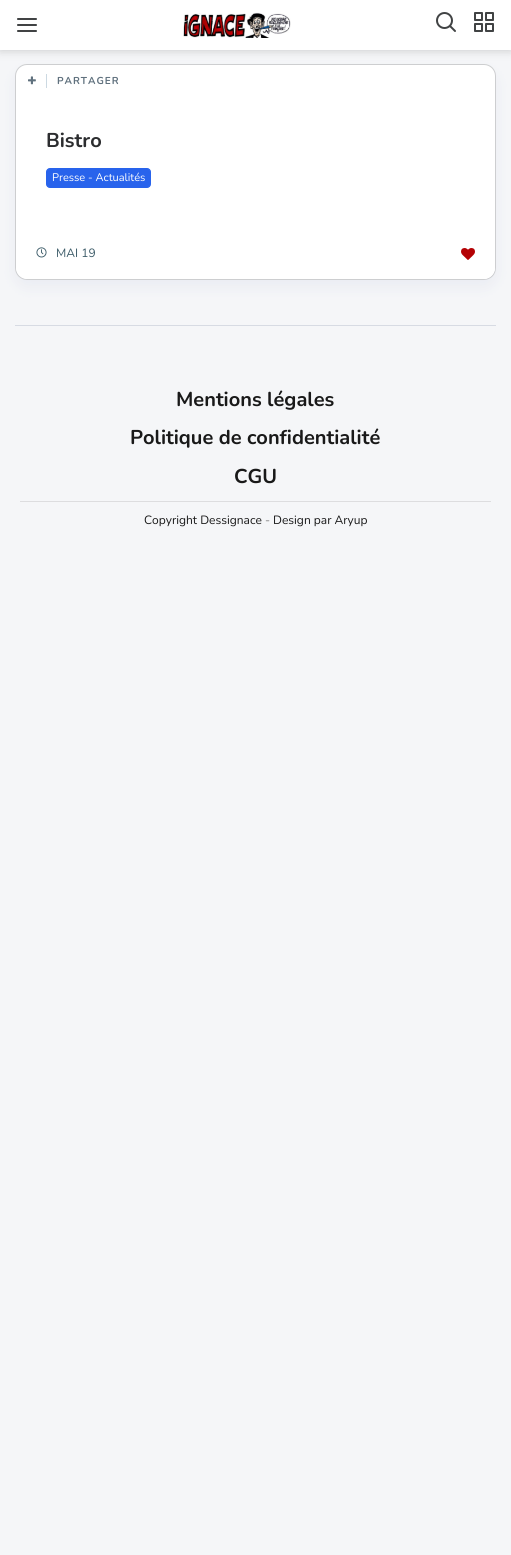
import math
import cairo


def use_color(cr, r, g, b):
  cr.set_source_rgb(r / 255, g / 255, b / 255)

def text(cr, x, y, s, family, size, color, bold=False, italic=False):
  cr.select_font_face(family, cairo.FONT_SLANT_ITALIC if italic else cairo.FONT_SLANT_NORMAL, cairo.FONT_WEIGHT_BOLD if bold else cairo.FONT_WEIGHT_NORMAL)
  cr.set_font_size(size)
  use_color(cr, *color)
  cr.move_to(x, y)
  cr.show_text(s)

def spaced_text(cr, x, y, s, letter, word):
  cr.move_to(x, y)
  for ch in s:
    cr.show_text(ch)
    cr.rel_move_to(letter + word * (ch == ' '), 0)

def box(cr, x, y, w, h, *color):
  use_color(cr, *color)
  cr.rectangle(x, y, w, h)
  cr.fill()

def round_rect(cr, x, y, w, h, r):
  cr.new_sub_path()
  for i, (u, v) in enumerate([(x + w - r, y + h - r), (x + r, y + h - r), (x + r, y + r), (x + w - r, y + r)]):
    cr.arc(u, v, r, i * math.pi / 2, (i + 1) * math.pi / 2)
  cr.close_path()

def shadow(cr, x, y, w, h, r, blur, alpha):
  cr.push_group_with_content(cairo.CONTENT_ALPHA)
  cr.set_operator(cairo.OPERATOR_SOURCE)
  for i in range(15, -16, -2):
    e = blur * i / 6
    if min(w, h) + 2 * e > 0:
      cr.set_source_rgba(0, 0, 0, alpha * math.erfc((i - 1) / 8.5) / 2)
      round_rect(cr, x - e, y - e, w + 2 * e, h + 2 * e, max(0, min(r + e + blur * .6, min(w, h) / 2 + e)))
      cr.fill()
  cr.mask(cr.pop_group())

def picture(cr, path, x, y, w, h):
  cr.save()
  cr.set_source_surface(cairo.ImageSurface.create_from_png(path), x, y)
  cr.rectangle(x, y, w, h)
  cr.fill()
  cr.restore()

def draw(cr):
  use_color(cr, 245, 246, 248)
  cr.paint()
  use_color(cr, 151, 160, 204)
  shadow(cr, 15, 71, 481, 216, 12, 7, 0.12)
  use_color(cr, 255, 255, 255)
  round_rect(cr, 15.5, 64.5, 480, 215, 11.5)
  cr.fill_preserve()
  use_color(cr, 205, 206, 208)
  cr.set_line_width(1)
  cr.stroke()
  use_color(cr, 0, 0, 0)
  shadow(cr, 0, 0, 511, 50, 0, 5, 0.2)
  box(cr, 0, 0, 511, 50, 255, 255, 255)
  picture(cr, "img_01.png", 17, 18, 20, 14)
  picture(cr, "img_02.png", 183, 12, 108, 26)
  picture(cr, "img_03.png", 436, 12, 20, 20)
  picture(cr, "img_04.png", 474, 12, 20, 20)
  picture(cr, "img_05.png", 28, 76, 8, 9)
  box(cr, 46, 74, 1, 14, 204, 217, 226)
  use_color(cr, 40, 99, 236)
  round_rect(cr, 46.5, 168.5, 104, 19, 3.5)
  cr.fill_preserve()
  cr.stroke()
  use_color(cr, 255, 255, 255)
  cr.new_path()
  cr.move_to(16, 228)
  cr.line_to(495, 228)
  cr.line_to(495, 267)
  cr.curve_to(495, 273.5, 489.5, 279, 483, 279)
  cr.line_to(28, 279)
  cr.curve_to(21.5, 279, 16, 273.5, 16, 267)
  cr.close_path()
  cr.fill()
  picture(cr, "img_06.png", 36, 247, 11, 11)
  cr.new_path()
  cr.move_to(441, 228)
  cr.line_to(495, 228)
  cr.line_to(495, 267)
  cr.curve_to(495, 273.5, 489.5, 279, 483, 279)
  cr.line_to(441, 279)
  cr.close_path()
  cr.fill()
  picture(cr, "img_07.png", 461, 248, 14, 12)
  box(cr, 15, 325, 481, 1, 215, 219, 227)
  box(cr, 20, 501, 471, 1, 221, 221, 223)
  cr.select_font_face("Nunito", cairo.FONT_SLANT_NORMAL, cairo.FONT_WEIGHT_BOLD)
  cr.set_font_size(10)
  use_color(cr, 96, 113, 126)
  spaced_text(cr, 57, 84, "PARTAGER", 1, 0)
  text(cr, 46, 147, "Bistro", "Nunito", 20, (44, 45, 47), bold=True)
  text(cr, 52, 181, "Presse - Actualités", "Nunito", 11, (255, 255, 255))
  text(cr, 56, 257, "MAI 19", "Nunito", 12, (60, 91, 104))
  text(cr, 176, 406, "Mentions légales", "Nunito", 20, (25, 25, 25), bold=True)
  text(cr, 130, 444, "Politique de confidentialité", "Nunito", 20, (25, 25, 25), bold=True)
  text(cr, 234, 483, "CGU", "Nunito", 20, (25, 25, 25), bold=True)
  text(cr, 144, 524, "Copyright Dessignace", "Nunito", 12, (25, 25, 25))
  text(cr, 265, 524, "-", "Nunito", 12, (123, 123, 124))
  text(cr, 273, 524, "Design par Aryup", "Nunito", 12, (25, 25, 25))


surface = cairo.ImageSurface(cairo.FORMAT_RGB24, 511, 1555)
cr = cairo.Context(surface)
options = cairo.FontOptions()
options.set_hint_metrics(cairo.HINT_METRICS_OFF)
options.set_hint_style(cairo.HINT_STYLE_NONE)
cr.set_font_options(options)
cr.set_miter_limit(4)
draw(cr)
surface.write_to_png("out.png")
